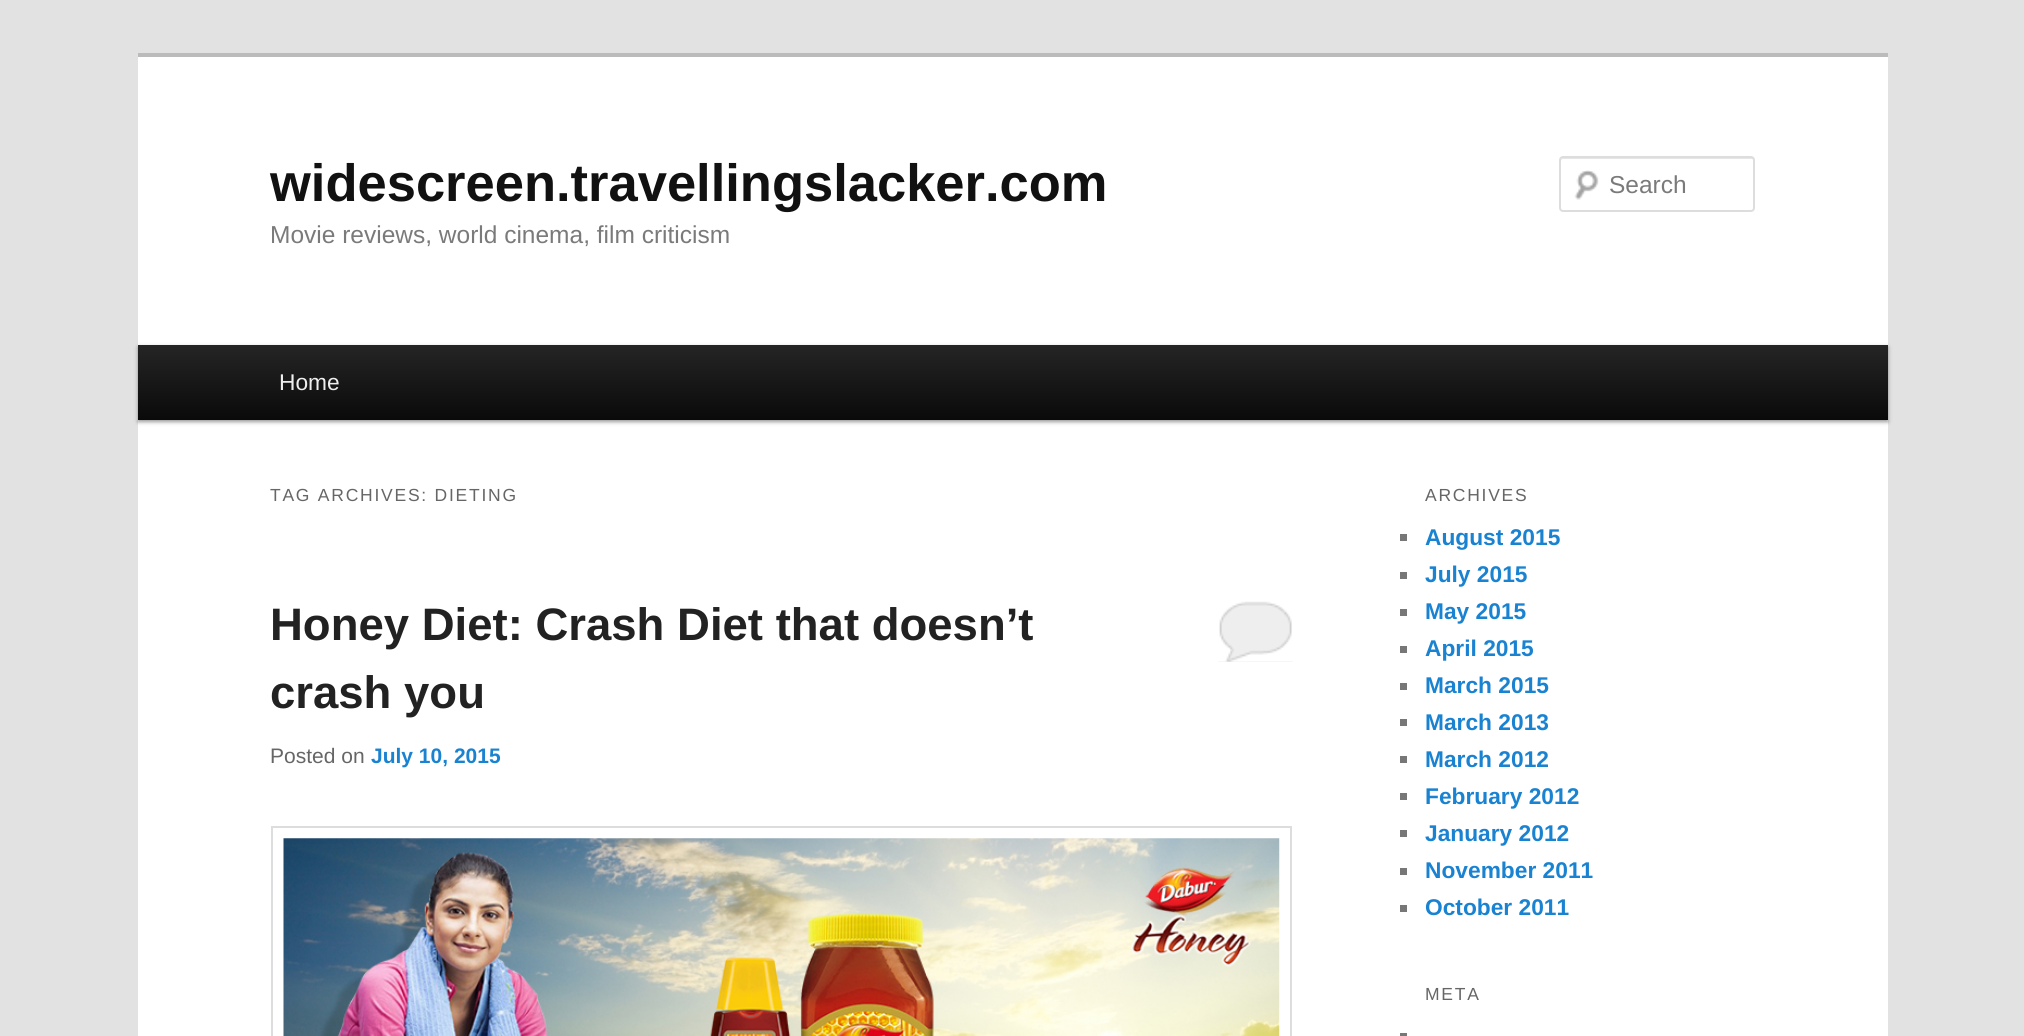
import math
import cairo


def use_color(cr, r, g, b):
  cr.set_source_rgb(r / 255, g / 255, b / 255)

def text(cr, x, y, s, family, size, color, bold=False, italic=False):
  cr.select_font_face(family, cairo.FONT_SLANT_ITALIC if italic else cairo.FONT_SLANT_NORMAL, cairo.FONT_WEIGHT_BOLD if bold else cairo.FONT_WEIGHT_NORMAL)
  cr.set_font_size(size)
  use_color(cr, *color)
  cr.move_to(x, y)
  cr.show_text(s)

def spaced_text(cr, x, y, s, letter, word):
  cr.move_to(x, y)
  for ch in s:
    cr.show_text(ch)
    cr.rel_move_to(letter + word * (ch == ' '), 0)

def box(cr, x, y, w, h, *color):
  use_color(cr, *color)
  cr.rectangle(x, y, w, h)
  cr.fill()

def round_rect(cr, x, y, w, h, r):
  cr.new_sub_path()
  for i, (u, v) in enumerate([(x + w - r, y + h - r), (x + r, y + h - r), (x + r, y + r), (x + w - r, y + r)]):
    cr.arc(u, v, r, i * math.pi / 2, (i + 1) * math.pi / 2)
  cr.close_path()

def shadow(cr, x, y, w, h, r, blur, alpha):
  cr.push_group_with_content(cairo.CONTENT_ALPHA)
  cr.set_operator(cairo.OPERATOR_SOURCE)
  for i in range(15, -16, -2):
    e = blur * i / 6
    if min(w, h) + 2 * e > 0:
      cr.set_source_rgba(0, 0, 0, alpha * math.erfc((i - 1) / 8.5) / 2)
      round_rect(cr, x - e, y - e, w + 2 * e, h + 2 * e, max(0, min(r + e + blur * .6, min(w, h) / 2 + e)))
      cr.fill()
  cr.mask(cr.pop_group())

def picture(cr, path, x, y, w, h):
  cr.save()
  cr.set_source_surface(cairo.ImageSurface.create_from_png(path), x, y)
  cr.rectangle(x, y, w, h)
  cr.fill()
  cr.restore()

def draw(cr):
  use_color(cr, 226, 226, 226)
  cr.paint()
  box(cr, 138, 57, 1750, 979, 255, 255, 255)
  box(cr, 138, 53, 1750, 4, 187, 187, 187)
  picture(cr, "img_01.png", 1574, 170, 25, 30)
  use_color(cr, 230, 230, 230)
  cr.new_path()
  cr.move_to(1563, 159)
  cr.line_to(1752, 159)
  cr.line_to(1754, 160)
  cr.line_to(1754, 161)
  cr.line_to(1754, 160)
  cr.curve_to(1754, 159, 1753, 158, 1752, 158)
  cr.line_to(1563, 158)
  cr.curve_to(1562, 158, 1561, 159, 1561, 160)
  cr.line_to(1561, 161)
  cr.curve_to(1561, 160, 1562, 159, 1563, 159)
  cr.close_path()
  cr.fill()
  round_rect(cr, 1560, 157, 194, 54, 3)
  use_color(cr, 221, 221, 221)
  cr.stroke()
  use_color(cr, 0, 0, 0)
  shadow(cr, 138, 347, 1750, 75, 0, 2, 0.4)
  gradient = cairo.LinearGradient(1013, 345, 1013, 420)
  gradient.add_color_stop_rgba(0, 0.145, 0.145, 0.145, 1)
  gradient.add_color_stop_rgba(1, 0.039, 0.039, 0.039, 1)
  cr.set_source(gradient)
  cr.rectangle(138, 345, 1750, 75)
  cr.fill()
  box(cr, 1218, 601, 75, 61, 238, 238, 238)
  picture(cr, "img_02.png", 1218, 599, 75, 63)
  cr.rectangle(272, 827, 1019, 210)
  use_color(cr, 221, 221, 221)
  cr.stroke()
  picture(cr, "img_03.png", 283, 838, 997, 198)
  box(cr, 1400, 534, 7, 7, 119, 119, 119)
  box(cr, 1400, 572, 7, 7, 119, 119, 119)
  box(cr, 1400, 609, 7, 7, 119, 119, 119)
  box(cr, 1400, 646, 7, 7, 119, 119, 119)
  box(cr, 1400, 683, 7, 7, 119, 119, 119)
  box(cr, 1400, 719, 7, 7, 119, 119, 119)
  box(cr, 1400, 756, 7, 7, 119, 119, 119)
  box(cr, 1400, 793, 7, 7, 119, 119, 119)
  box(cr, 1400, 830, 7, 7, 119, 119, 119)
  box(cr, 1400, 868, 7, 7, 119, 119, 119)
  box(cr, 1400, 905, 7, 7, 119, 119, 119)
  box(cr, 1400, 1033, 7, 3, 119, 119, 119)
  text(cr, 270, 201, "widescreen.travellingslacker.com", "Liberation Sans", 52.5, (17, 17, 17), bold=True)
  text(cr, 270, 243, "Movie reviews, world cinema, film criticism", "Liberation Sans", 24.5, (122, 122, 122))
  text(cr, 1609, 193, "Search", "Liberation Sans", 24.5, (122, 122, 122))
  text(cr, 279, 390, "Home", "Liberation Sans", 22.75, (238, 238, 238))
  cr.set_font_size(17.5)
  use_color(cr, 102, 102, 102)
  spaced_text(cr, 270, 501, "TAG ARCHIVES: DIETING", 1.75, 0)
  text(cr, 270, 640, "Honey Diet: Crash Diet that doesn’t", "Liberation Sans", 45.5, (34, 34, 34), bold=True)
  text(cr, 270, 708, "crash you", "Liberation Sans", 45.5, (34, 34, 34), bold=True)
  text(cr, 270, 763, "Posted on", "Liberation Sans", 21, (102, 102, 102))
  text(cr, 371, 763, "July 10, 2015", "Liberation Sans", 21, (25, 130, 209), bold=True)
  cr.select_font_face("Liberation Sans")
  cr.set_font_size(17.5)
  use_color(cr, 102, 102, 102)
  spaced_text(cr, 1425, 501, "ARCHIVES", 1.75, 0)
  text(cr, 1425, 545, "August 2015", "Liberation Sans", 22.75, (25, 130, 209), bold=True)
  text(cr, 1425, 582, "July 2015", "Liberation Sans", 22.75, (25, 130, 209), bold=True)
  text(cr, 1425, 619, "May 2015", "Liberation Sans", 22.75, (25, 130, 209), bold=True)
  text(cr, 1425, 656, "April 2015", "Liberation Sans", 22.75, (25, 130, 209), bold=True)
  text(cr, 1425, 693, "March 2015", "Liberation Sans", 22.75, (25, 130, 209), bold=True)
  text(cr, 1425, 730, "March 2013", "Liberation Sans", 22.75, (25, 130, 209), bold=True)
  text(cr, 1425, 767, "March 2012", "Liberation Sans", 22.75, (25, 130, 209), bold=True)
  text(cr, 1425, 804, "February 2012", "Liberation Sans", 22.75, (25, 130, 209), bold=True)
  text(cr, 1425, 841, "January 2012", "Liberation Sans", 22.75, (25, 130, 209), bold=True)
  text(cr, 1425, 878, "November 2011", "Liberation Sans", 22.75, (25, 130, 209), bold=True)
  text(cr, 1425, 915, "October 2011", "Liberation Sans", 22.75, (25, 130, 209), bold=True)
  cr.select_font_face("Liberation Sans")
  cr.set_font_size(17.5)
  use_color(cr, 102, 102, 102)
  spaced_text(cr, 1425, 1000, "META", 1.75, 0)


surface = cairo.ImageSurface(cairo.FORMAT_RGB24, 2024, 1036)
cr = cairo.Context(surface)
options = cairo.FontOptions()
options.set_hint_metrics(cairo.HINT_METRICS_OFF)
options.set_hint_style(cairo.HINT_STYLE_NONE)
cr.set_font_options(options)
cr.set_miter_limit(4)
draw(cr)
surface.write_to_png("out.png")
